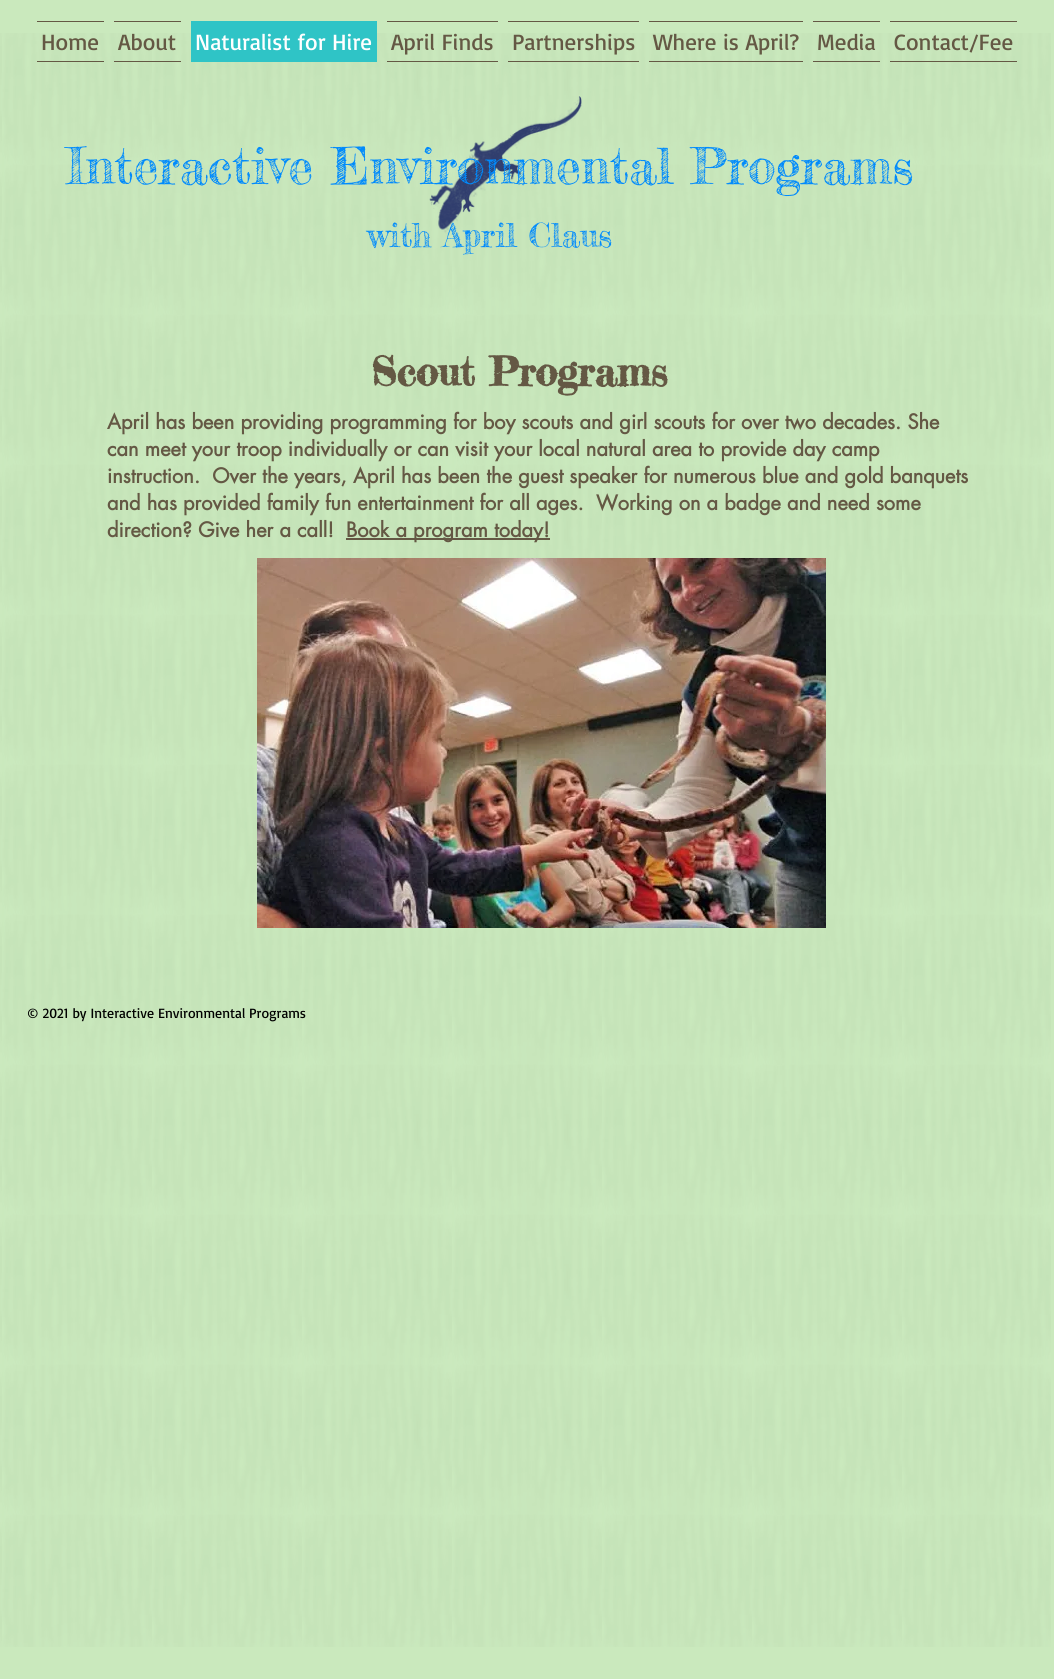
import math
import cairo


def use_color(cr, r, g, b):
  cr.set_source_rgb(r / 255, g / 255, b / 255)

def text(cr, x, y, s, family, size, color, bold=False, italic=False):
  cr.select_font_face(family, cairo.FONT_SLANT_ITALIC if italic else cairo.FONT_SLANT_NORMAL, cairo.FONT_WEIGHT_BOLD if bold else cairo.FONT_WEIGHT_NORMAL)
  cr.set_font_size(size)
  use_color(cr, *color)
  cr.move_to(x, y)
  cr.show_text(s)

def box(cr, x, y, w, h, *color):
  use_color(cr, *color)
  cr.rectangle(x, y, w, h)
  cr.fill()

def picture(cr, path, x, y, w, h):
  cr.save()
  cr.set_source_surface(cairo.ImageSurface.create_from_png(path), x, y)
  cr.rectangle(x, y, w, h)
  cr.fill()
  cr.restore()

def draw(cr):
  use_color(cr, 202, 233, 189)
  cr.paint()
  picture(cr, "img_01.png", 0, 33, 1051, 1614)
  box(cr, 37, 21, 67, 1, 100, 88, 68)
  box(cr, 37, 61, 67, 1, 100, 88, 68)
  box(cr, 114, 21, 67, 1, 100, 88, 68)
  box(cr, 114, 61, 67, 1, 100, 88, 68)
  box(cr, 191, 21, 186, 41, 47, 196, 198)
  box(cr, 387, 21, 111, 1, 100, 88, 68)
  box(cr, 387, 61, 111, 1, 100, 88, 68)
  box(cr, 508, 21, 131, 1, 100, 88, 68)
  box(cr, 508, 61, 131, 1, 100, 88, 68)
  box(cr, 649, 21, 154, 1, 100, 88, 68)
  box(cr, 649, 61, 154, 1, 100, 88, 68)
  box(cr, 813, 21, 67, 1, 100, 88, 68)
  box(cr, 813, 61, 67, 1, 100, 88, 68)
  box(cr, 890, 21, 127, 1, 100, 88, 68)
  box(cr, 890, 61, 127, 1, 100, 88, 68)
  picture(cr, "img_02.png", 429, 96, 153, 138)
  box(cr, 346, 538, 204, 2, 100, 88, 68)
  picture(cr, "img_03.png", 257, 558, 569, 370)
  text(cr, 41, 50, "Home", "Basic", 23, (100, 88, 68))
  text(cr, 118, 50, "About", "Basic", 23, (100, 88, 68))
  text(cr, 195, 50, "Naturalist for Hire", "Basic", 23, (255, 255, 255))
  text(cr, 391, 50, "April Finds", "Basic", 23, (100, 88, 68))
  text(cr, 512, 50, "Partnerships", "Basic", 23, (100, 88, 68))
  text(cr, 653, 50, "Where is April?", "Basic", 23, (100, 88, 68))
  text(cr, 817, 50, "Media", "Basic", 23, (100, 88, 68))
  text(cr, 894, 50, "Contact/Fee", "Basic", 23, (100, 88, 68))
  text(cr, 66, 184, "Interactive Environmental Programs", "Fredericka the Great", 50, (0, 138, 252))
  text(cr, 367, 247, "with April Claus", "Fredericka the Great", 33, (0, 138, 252))
  text(cr, 371, 386, "Scout Programs", "Fredericka the Great", 40, (100, 88, 68), bold=True)
  text(cr, 107, 429, "April has been providing programming for boy scouts and girl scouts for over two decades. She", "futura", 20, (100, 88, 68), bold=True)
  text(cr, 107, 456, "can meet your troop individually or can visit your local natural area to provide day camp", "futura", 20, (100, 88, 68), bold=True)
  text(cr, 107, 483, "instruction.  Over the years, April has been the guest speaker for numerous blue and gold banquets", "futura", 20, (100, 88, 68), bold=True)
  text(cr, 107, 510, "and has provided family fun entertainment for all ages.  Working on a badge and need some", "futura", 20, (100, 88, 68), bold=True)
  text(cr, 107, 537, "direction? Give her a call!", "futura", 20, (100, 88, 68), bold=True)
  text(cr, 346, 537, "Book a program today!", "futura", 20, (100, 88, 68), bold=True)
  text(cr, 27, 1018, "© 2021 by Interactive Environmental Programs", "Basic", 14, (0, 0, 0))


surface = cairo.ImageSurface(cairo.FORMAT_RGB24, 1054, 1679)
cr = cairo.Context(surface)
options = cairo.FontOptions()
options.set_hint_metrics(cairo.HINT_METRICS_OFF)
options.set_hint_style(cairo.HINT_STYLE_NONE)
cr.set_font_options(options)
cr.set_miter_limit(4)
draw(cr)
surface.write_to_png("out.png")
